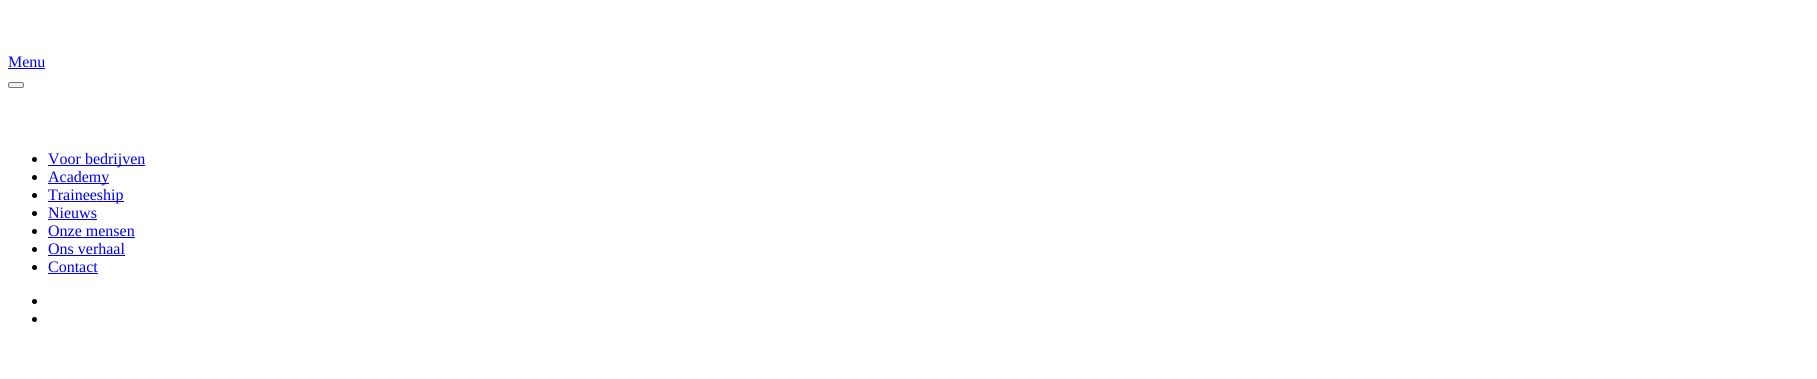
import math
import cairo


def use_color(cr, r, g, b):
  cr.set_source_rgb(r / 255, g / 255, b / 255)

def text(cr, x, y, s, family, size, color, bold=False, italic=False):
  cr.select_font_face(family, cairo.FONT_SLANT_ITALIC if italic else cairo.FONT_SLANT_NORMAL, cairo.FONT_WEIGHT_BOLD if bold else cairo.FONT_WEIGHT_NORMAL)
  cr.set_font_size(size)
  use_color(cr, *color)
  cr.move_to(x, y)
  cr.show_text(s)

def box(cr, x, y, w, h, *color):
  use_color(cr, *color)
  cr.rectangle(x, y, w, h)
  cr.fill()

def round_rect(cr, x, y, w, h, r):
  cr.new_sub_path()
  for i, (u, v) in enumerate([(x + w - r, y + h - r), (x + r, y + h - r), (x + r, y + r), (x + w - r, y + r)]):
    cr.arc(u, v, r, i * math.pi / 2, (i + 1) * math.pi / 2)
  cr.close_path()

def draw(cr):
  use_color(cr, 255, 255, 255)
  cr.paint()
  box(cr, 8, 68, 37, 1, 0, 0, 238)
  use_color(cr, 239, 239, 239)
  round_rect(cr, 8.5, 82.5, 15, 5, 1.5)
  cr.fill_preserve()
  use_color(cr, 118, 118, 118)
  cr.set_line_width(1)
  cr.stroke()
  use_color(cr, 0, 0, 0)
  cr.arc(34.5, 159.5, 2.5, 0, 2 * math.pi)
  cr.fill()
  box(cr, 48, 165, 97, 1, 0, 0, 238)
  use_color(cr, 0, 0, 0)
  cr.arc(34.5, 177.5, 2.5, 0, 2 * math.pi)
  cr.fill()
  box(cr, 48, 183, 61, 1, 0, 0, 238)
  use_color(cr, 0, 0, 0)
  cr.arc(34.5, 195.5, 2.5, 0, 2 * math.pi)
  cr.fill()
  box(cr, 48, 201, 76, 1, 0, 0, 238)
  use_color(cr, 0, 0, 0)
  cr.arc(34.5, 213.5, 2.5, 0, 2 * math.pi)
  cr.fill()
  box(cr, 48, 219, 49, 1, 0, 0, 238)
  use_color(cr, 0, 0, 0)
  cr.arc(34.5, 231.5, 2.5, 0, 2 * math.pi)
  cr.fill()
  box(cr, 48, 237, 87, 1, 0, 0, 238)
  use_color(cr, 0, 0, 0)
  cr.arc(34.5, 249.5, 2.5, 0, 2 * math.pi)
  cr.fill()
  box(cr, 48, 255, 77, 1, 0, 0, 238)
  use_color(cr, 0, 0, 0)
  cr.arc(34.5, 267.5, 2.5, 0, 2 * math.pi)
  cr.fill()
  box(cr, 48, 273, 50, 1, 0, 0, 238)
  use_color(cr, 0, 0, 0)
  cr.arc(34.5, 301.5, 2.5, 0, 2 * math.pi)
  cr.fill()
  cr.arc(34.5, 319.5, 2.5, 0, 2 * math.pi)
  cr.fill()
  text(cr, 8, 67, "Menu", "Liberation Serif", 16, (0, 0, 238))
  text(cr, 48, 164, "Voor bedrijven", "Liberation Serif", 16, (0, 0, 238))
  text(cr, 48, 182, "Academy", "Liberation Serif", 16, (0, 0, 238))
  text(cr, 48, 200, "Traineeship", "Liberation Serif", 16, (0, 0, 238))
  text(cr, 48, 218, "Nieuws", "Liberation Serif", 16, (0, 0, 238))
  text(cr, 48, 236, "Onze mensen", "Liberation Serif", 16, (0, 0, 238))
  text(cr, 48, 254, "Ons verhaal", "Liberation Serif", 16, (0, 0, 238))
  text(cr, 48, 272, "Contact", "Liberation Serif", 16, (0, 0, 238))


surface = cairo.ImageSurface(cairo.FORMAT_RGB24, 1817, 379)
cr = cairo.Context(surface)
options = cairo.FontOptions()
options.set_hint_metrics(cairo.HINT_METRICS_OFF)
options.set_hint_style(cairo.HINT_STYLE_NONE)
cr.set_font_options(options)
cr.set_miter_limit(4)
draw(cr)
surface.write_to_png("out.png")
